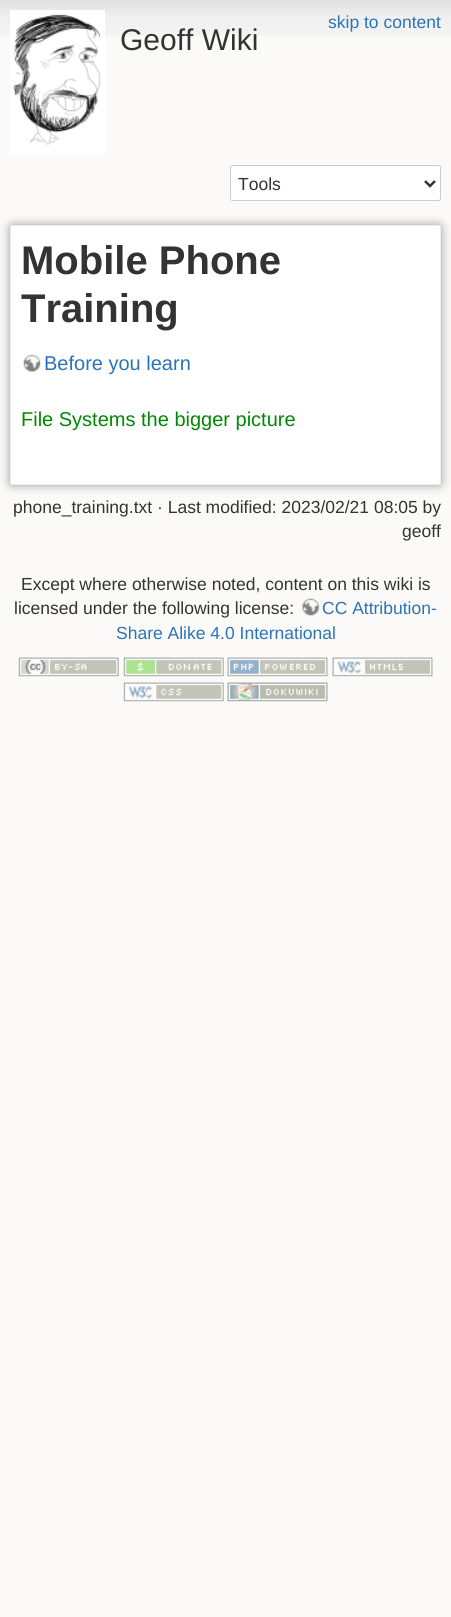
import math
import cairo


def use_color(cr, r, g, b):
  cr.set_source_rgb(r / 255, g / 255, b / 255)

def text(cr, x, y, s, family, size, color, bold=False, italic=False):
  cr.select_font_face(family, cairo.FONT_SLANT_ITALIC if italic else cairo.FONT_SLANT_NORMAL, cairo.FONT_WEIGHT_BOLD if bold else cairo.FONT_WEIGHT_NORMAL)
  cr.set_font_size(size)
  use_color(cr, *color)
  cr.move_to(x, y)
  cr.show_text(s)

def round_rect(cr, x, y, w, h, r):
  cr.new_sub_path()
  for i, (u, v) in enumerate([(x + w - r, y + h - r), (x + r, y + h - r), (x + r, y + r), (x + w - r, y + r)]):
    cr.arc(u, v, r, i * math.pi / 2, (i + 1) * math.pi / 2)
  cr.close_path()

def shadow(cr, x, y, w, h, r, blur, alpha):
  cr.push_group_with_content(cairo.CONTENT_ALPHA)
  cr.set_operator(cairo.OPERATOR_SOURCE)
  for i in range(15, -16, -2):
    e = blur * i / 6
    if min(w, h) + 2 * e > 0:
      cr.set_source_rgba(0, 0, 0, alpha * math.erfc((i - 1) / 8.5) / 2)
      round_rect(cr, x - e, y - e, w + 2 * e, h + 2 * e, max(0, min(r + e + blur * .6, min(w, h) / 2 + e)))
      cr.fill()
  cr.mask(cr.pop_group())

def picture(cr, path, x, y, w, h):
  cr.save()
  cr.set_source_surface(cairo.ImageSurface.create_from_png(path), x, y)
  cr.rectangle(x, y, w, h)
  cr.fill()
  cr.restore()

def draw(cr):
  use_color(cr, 251, 250, 249)
  cr.paint()
  picture(cr, "img_01.png", 0, 0, 451, 36)
  picture(cr, "img_02.png", 10, 10, 95, 145)
  use_color(cr, 255, 255, 255)
  round_rect(cr, 230.5, 165.5, 210, 35, 2)
  cr.fill_preserve()
  use_color(cr, 204, 204, 204)
  cr.set_line_width(1)
  cr.stroke()
  cr.new_path()
  cr.move_to(425, 181)
  cr.line_to(430, 186)
  cr.line_to(435, 181)
  use_color(cr, 51, 51, 51)
  cr.set_line_width(2.5)
  cr.stroke()
  use_color(cr, 153, 153, 153)
  shadow(cr, 10, 225, 431, 260, 2.5, 5, 1)
  use_color(cr, 255, 255, 255)
  round_rect(cr, 10.5, 225.5, 430, 259, 2)
  cr.fill_preserve()
  use_color(cr, 238, 238, 238)
  cr.set_line_width(1)
  cr.stroke()
  picture(cr, "img_03.png", 23, 354, 18, 19)
  picture(cr, "img_04.png", 302, 598, 18, 19)
  picture(cr, "img_05.png", 18, 657, 101, 20)
  picture(cr, "img_06.png", 123, 657, 101, 20)
  picture(cr, "img_07.png", 227, 657, 101, 20)
  picture(cr, "img_08.png", 332, 657, 101, 20)
  picture(cr, "img_09.png", 123, 682, 101, 20)
  picture(cr, "img_10.png", 227, 682, 101, 20)
  text(cr, 328, 28, "skip to content", "Liberation Sans", 17.5, (43, 115, 183))
  text(cr, 120, 50, "Geoff Wiki", "Liberation Sans", 30, (51, 51, 51))
  text(cr, 238, 190, "Tools", "Liberation Sans", 17.5, (51, 51, 51))
  text(cr, 21, 274, "Mobile Phone", "Liberation Sans", 40, (51, 51, 51), bold=True)
  text(cr, 21, 322, "Training", "Liberation Sans", 40, (51, 51, 51), bold=True)
  text(cr, 44, 370, "Before you learn", "Liberation Sans", 20, (43, 115, 183))
  text(cr, 21, 426, "File Systems the bigger picture", "Liberation Sans", 20, (0, 136, 0))
  text(cr, 13, 513, "phone_training.txt · Last modified: 2023/02/21 08:05 by", "Liberation Sans", 17.5, (51, 51, 51))
  text(cr, 402, 537, "geoff", "Liberation Sans", 17.5, (51, 51, 51))
  text(cr, 21, 590, "Except where otherwise noted, content on this wiki is", "Liberation Sans", 17.5, (51, 51, 51))
  text(cr, 14, 614, "licensed under the following license:", "Liberation Sans", 17.5, (51, 51, 51))
  text(cr, 322, 614, "CC Attribution-", "Liberation Sans", 17.5, (43, 115, 183))
  text(cr, 116, 639, "Share Alike 4.0 International", "Liberation Sans", 17.5, (43, 115, 183))


surface = cairo.ImageSurface(cairo.FORMAT_RGB24, 451, 1617)
cr = cairo.Context(surface)
options = cairo.FontOptions()
options.set_hint_metrics(cairo.HINT_METRICS_OFF)
options.set_hint_style(cairo.HINT_STYLE_NONE)
cr.set_font_options(options)
cr.set_miter_limit(4)
draw(cr)
surface.write_to_png("out.png")
